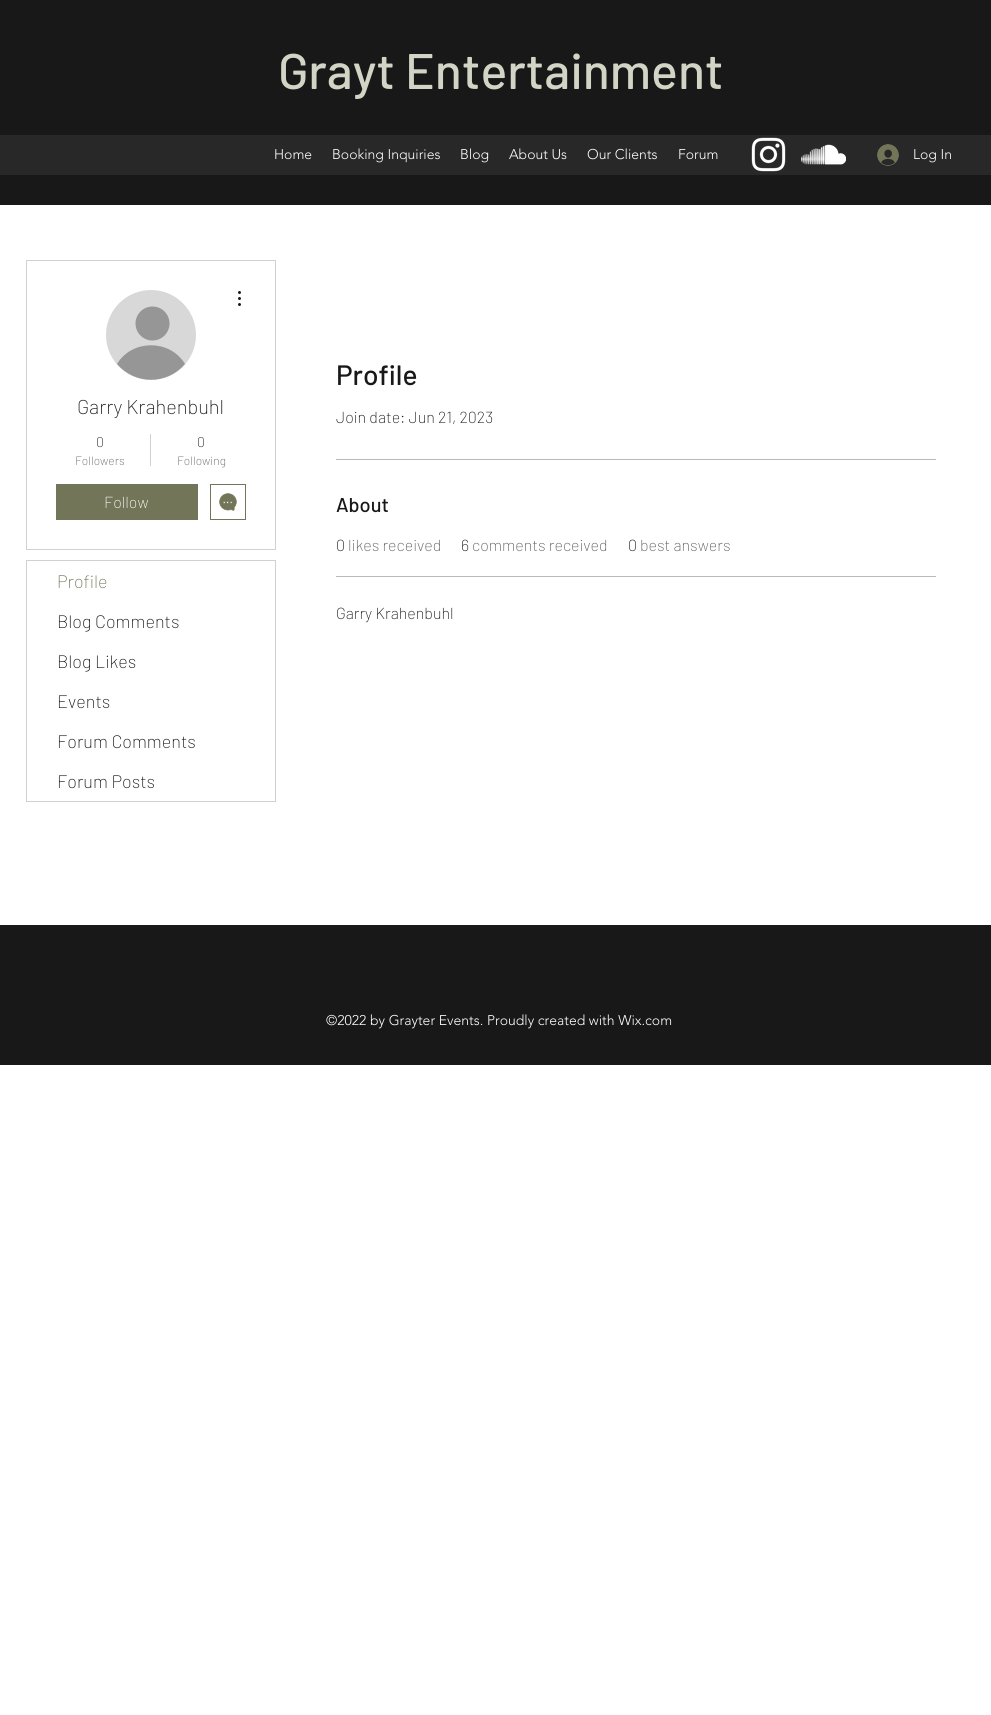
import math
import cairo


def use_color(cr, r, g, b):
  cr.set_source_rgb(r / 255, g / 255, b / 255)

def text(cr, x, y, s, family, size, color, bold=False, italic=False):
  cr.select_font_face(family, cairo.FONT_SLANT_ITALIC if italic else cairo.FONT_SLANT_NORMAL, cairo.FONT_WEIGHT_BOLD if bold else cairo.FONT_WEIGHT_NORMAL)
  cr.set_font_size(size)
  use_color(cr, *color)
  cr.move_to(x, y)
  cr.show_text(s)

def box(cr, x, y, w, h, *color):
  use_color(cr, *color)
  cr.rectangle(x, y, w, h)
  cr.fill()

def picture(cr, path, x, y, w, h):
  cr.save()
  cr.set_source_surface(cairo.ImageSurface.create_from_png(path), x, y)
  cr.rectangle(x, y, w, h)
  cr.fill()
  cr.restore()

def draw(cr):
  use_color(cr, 255, 255, 255)
  cr.paint()
  box(cr, 0, 0, 991, 205, 24, 24, 24)
  box(cr, 0, 135, 991, 40, 40, 40, 40)
  picture(cr, "img_01.png", 751, 137, 35, 35)
  picture(cr, "img_02.png", 801, 144, 45, 21)
  picture(cr, "img_03.png", 877, 144, 22, 22)
  cr.rectangle(26.5, 260.5, 249, 289)
  use_color(cr, 209, 209, 209)
  cr.set_line_width(1)
  cr.stroke()
  use_color(cr, 216, 216, 216)
  cr.arc(151, 335, 45, 0, 2 * math.pi)
  cr.fill()
  use_color(cr, 150, 150, 150)
  cr.arc(152.5, 323.5, 17, 0, 2 * math.pi)
  cr.fill()
  cr.new_path()
  cr.move_to(185, 364)
  cr.curve_to(167, 385, 135, 385, 117, 364)
  cr.curve_to(132, 339, 170, 339, 185, 364)
  cr.close_path()
  cr.fill()
  picture(cr, "img_04.png", 238, 291, 3, 15)
  box(cr, 150, 434, 1, 32, 209, 209, 209)
  box(cr, 56, 484, 142, 36, 114, 117, 87)
  cr.rectangle(210.5, 484.5, 35, 35)
  cr.stroke()
  picture(cr, "img_05.png", 219, 493, 18, 18)
  cr.rectangle(26.5, 560.5, 249, 241)
  use_color(cr, 209, 209, 209)
  cr.stroke()
  box(cr, 336, 459, 600, 1, 186, 186, 186)
  box(cr, 336, 576, 600, 1, 186, 186, 186)
  box(cr, 0, 925, 991, 140, 24, 24, 24)
  text(cr, 278, 89, "Grayt Entertainment", "Barlow Medium", 50, (210, 212, 197))
  text(cr, 274, 159, "Home", "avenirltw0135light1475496 Light", 14, (255, 255, 255))
  text(cr, 332, 159, "Booking Inquiries", "avenirltw0135light1475496 Light", 14, (255, 255, 255))
  text(cr, 460, 159, "Blog", "avenirltw0135light1475496 Light", 14, (255, 255, 255))
  text(cr, 509, 159, "About Us", "avenirltw0135light1475496 Light", 14, (255, 255, 255))
  text(cr, 587, 159, "Our Clients", "avenirltw0135light1475496 Light", 14, (255, 255, 255))
  text(cr, 678, 159, "Forum", "avenirltw0135light1475496 Light", 14, (255, 255, 255))
  text(cr, 913, 159, "Log In", "avenirltw0135light1475496 Light", 14, (255, 255, 255))
  text(cr, 77, 414, "Garry Krahenbuhl", "Barlow ExtraLight", 20, (24, 24, 24))
  text(cr, 96, 447, "0", "Barlow ExtraLight", 14, (24, 24, 24))
  text(cr, 75, 465, "Followers", "Barlow ExtraLight", 12, (93, 93, 93))
  text(cr, 197, 447, "0", "Barlow ExtraLight", 14, (24, 24, 24))
  text(cr, 177, 465, "Following", "Barlow ExtraLight", 12, (93, 93, 93))
  text(cr, 104, 508, "Follow", "Barlow ExtraLight", 16, (255, 255, 255))
  text(cr, 57, 588, "Profile", "Barlow ExtraLight", 18, (114, 117, 87))
  text(cr, 57, 628, "Blog Comments", "Barlow ExtraLight", 18, (24, 24, 24))
  text(cr, 57, 668, "Blog Likes", "Barlow ExtraLight", 18, (24, 24, 24))
  text(cr, 57, 708, "Events", "Barlow ExtraLight", 18, (24, 24, 24))
  text(cr, 57, 748, "Forum Comments", "Barlow ExtraLight", 18, (24, 24, 24))
  text(cr, 57, 788, "Forum Posts", "Barlow ExtraLight", 18, (24, 24, 24))
  text(cr, 336, 385, "Profile", "Barlow Medium", 28, (24, 24, 24))
  text(cr, 336, 423, "Join date: Jun 21, 2023", "Barlow ExtraLight", 16, (24, 24, 24))
  text(cr, 336, 512, "About", "Barlow Medium", 20, (24, 24, 24))
  text(cr, 336, 551, "0", "Barlow ExtraLight", 16, (24, 24, 24))
  text(cr, 348, 551, "likes received", "Barlow ExtraLight", 16, (93, 93, 93))
  text(cr, 461, 551, "6", "Barlow ExtraLight", 16, (24, 24, 24))
  text(cr, 472, 551, "comments received", "Barlow ExtraLight", 16, (93, 93, 93))
  text(cr, 628, 551, "0", "Barlow ExtraLight", 16, (24, 24, 24))
  text(cr, 640, 551, "best answers", "Barlow ExtraLight", 16, (93, 93, 93))
  text(cr, 336, 619, "Garry Krahenbuhl", "Barlow ExtraLight", 16, (24, 24, 24))
  text(cr, 326, 1025, "©2022 by Grayter Events. Proudly created with Wix.com", "avenirltw0135light1475496 Light", 14, (255, 255, 255))


surface = cairo.ImageSurface(cairo.FORMAT_RGB24, 991, 1715)
cr = cairo.Context(surface)
options = cairo.FontOptions()
options.set_hint_metrics(cairo.HINT_METRICS_OFF)
options.set_hint_style(cairo.HINT_STYLE_NONE)
cr.set_font_options(options)
cr.set_miter_limit(4)
draw(cr)
surface.write_to_png("out.png")
